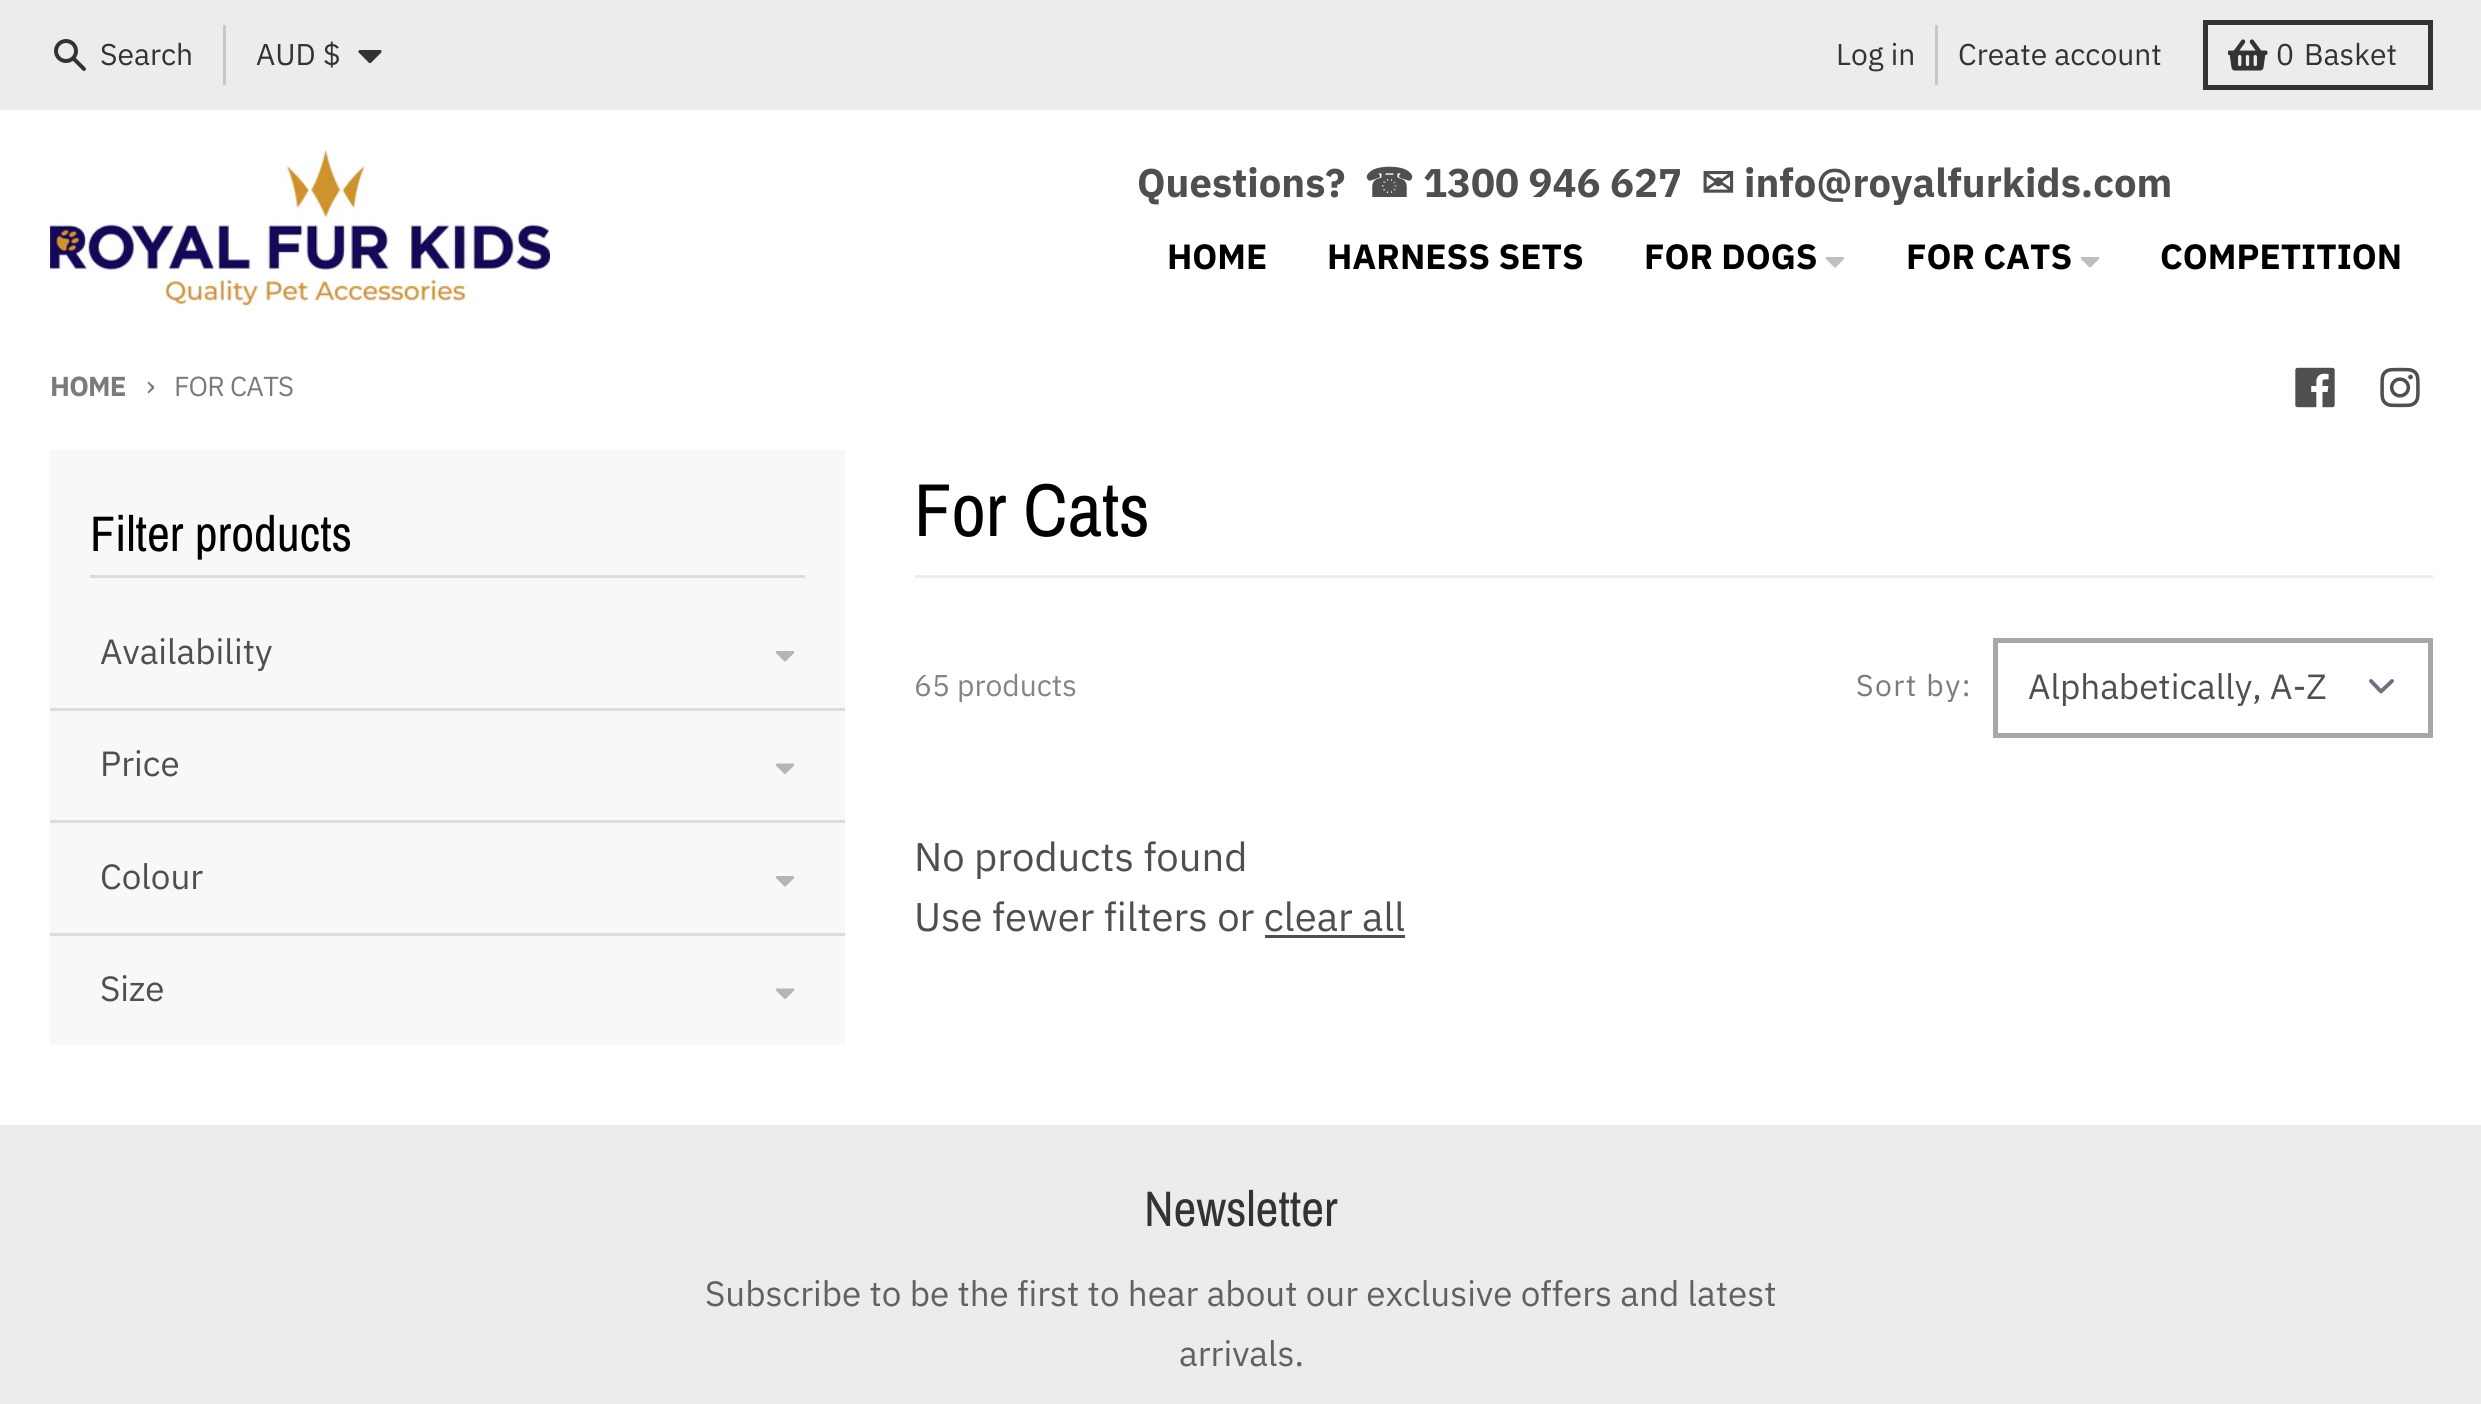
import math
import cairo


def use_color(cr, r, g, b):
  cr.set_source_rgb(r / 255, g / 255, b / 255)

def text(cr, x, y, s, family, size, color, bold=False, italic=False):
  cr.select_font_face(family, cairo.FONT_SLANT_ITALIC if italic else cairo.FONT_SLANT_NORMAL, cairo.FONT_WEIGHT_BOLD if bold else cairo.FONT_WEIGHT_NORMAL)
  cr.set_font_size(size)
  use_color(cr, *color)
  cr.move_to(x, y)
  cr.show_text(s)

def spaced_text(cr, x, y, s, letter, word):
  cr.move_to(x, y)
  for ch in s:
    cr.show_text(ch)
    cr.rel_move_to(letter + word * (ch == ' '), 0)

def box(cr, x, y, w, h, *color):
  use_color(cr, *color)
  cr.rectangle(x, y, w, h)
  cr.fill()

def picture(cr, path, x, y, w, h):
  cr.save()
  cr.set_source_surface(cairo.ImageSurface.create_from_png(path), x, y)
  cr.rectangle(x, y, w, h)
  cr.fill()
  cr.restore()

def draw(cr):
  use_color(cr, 236, 236, 236)
  cr.paint()
  picture(cr, "img_01.png", 54, 39, 32, 32)
  box(cr, 223, 25, 3, 60, 199, 199, 199)
  picture(cr, "img_02.png", 358, 50, 24, 14)
  box(cr, 1935, 25, 3, 60, 199, 199, 199)
  cr.rectangle(2205.5, 22.5, 225, 65)
  use_color(cr, 51, 51, 51)
  cr.set_line_width(5)
  cr.stroke()
  picture(cr, "img_03.png", 2228, 39, 40, 32)
  box(cr, 0, 110, 2481, 1015, 255, 255, 255)
  picture(cr, "img_04.png", 50, 150, 500, 155)
  picture(cr, "img_05.png", 1825, 257, 20, 11)
  picture(cr, "img_05.png", 2080, 257, 20, 11)
  picture(cr, "img_06.png", 2295, 367, 40, 41)
  picture(cr, "img_07.png", 2380, 367, 40, 41)
  box(cr, 50, 450, 795, 595, 248, 248, 248)
  box(cr, 90, 575, 715, 3, 220, 220, 220)
  picture(cr, "img_08.png", 775, 651, 20, 11)
  box(cr, 50, 708, 795, 3, 220, 220, 220)
  picture(cr, "img_09.png", 775, 763, 20, 11)
  box(cr, 50, 820, 795, 3, 220, 220, 220)
  picture(cr, "img_08.png", 775, 876, 20, 11)
  box(cr, 50, 933, 795, 3, 220, 220, 220)
  picture(cr, "img_09.png", 775, 988, 20, 11)
  box(cr, 915, 575, 1518, 3, 237, 237, 237)
  cr.new_path()
  cr.move_to(2371, 681)
  cr.line_to(2381, 691.5)
  cr.line_to(2392, 681)
  use_color(cr, 107, 114, 128)
  cr.set_line_width(3.9)
  cr.set_line_cap(cairo.LINE_CAP_ROUND)
  cr.set_line_join(cairo.LINE_JOIN_ROUND)
  cr.stroke()
  cr.rectangle(1995.5, 640.5, 435, 95)
  use_color(cr, 167, 167, 167)
  cr.set_line_width(5)
  cr.set_line_cap(cairo.LINE_CAP_BUTT)
  cr.set_line_join(cairo.LINE_JOIN_MITER)
  cr.stroke()
  box(cr, 1265, 935, 140, 3, 79, 79, 79)
  text(cr, 100, 65, "Search", "IBM Plex Sans", 30, (51, 51, 51))
  text(cr, 256, 65, "AUD $", "IBM Plex Sans", 30, (51, 51, 51))
  text(cr, 1836, 65, "Log in", "IBM Plex Sans", 30, (51, 51, 51))
  text(cr, 1958, 65, "Create account", "IBM Plex Sans", 30, (51, 51, 51))
  text(cr, 2276, 65, "0", "IBM Plex Sans", 30, (51, 51, 51))
  text(cr, 2304, 65, "Basket", "IBM Plex Sans", 30, (51, 51, 51))
  text(cr, 1137, 197, "Questions?", "IBM Plex Sans", 40, (79, 79, 79), bold=True)
  text(cr, 1364, 197, "☎", "DejaVu Sans", 40, (79, 79, 79), bold=True)
  text(cr, 1423, 197, "1300 946 627", "IBM Plex Sans", 40, (79, 79, 79), bold=True)
  text(cr, 1701, 197, "✉", "DejaVu Sans", 40, (79, 79, 79), bold=True)
  text(cr, 1744, 197, "info@royalfurkids.com", "IBM Plex Sans", 40, (79, 79, 79), bold=True)
  text(cr, 1167, 269, "HOME", "IBM Plex Sans", 35, (0, 0, 0), bold=True)
  text(cr, 1327, 269, "HARNESS SETS", "IBM Plex Sans", 35, (0, 0, 0), bold=True)
  text(cr, 1644, 269, "FOR DOGS", "IBM Plex Sans", 35, (0, 0, 0), bold=True)
  text(cr, 1906, 269, "FOR CATS", "IBM Plex Sans", 35, (0, 0, 0), bold=True)
  text(cr, 2160, 269, "COMPETITION", "IBM Plex Sans", 35, (0, 0, 0), bold=True)
  cr.set_font_size(27.5)
  use_color(cr, 123, 123, 123)
  spaced_text(cr, 50, 396, "HOME", -0.75, 0)
  cr.select_font_face("IBM Plex Sans")
  cr.set_font_size(30)
  spaced_text(cr, 146, 396, "›", -0.75, 0)
  cr.set_font_size(27.5)
  spaced_text(cr, 174, 396, "FOR CATS", -0.75, 0)
  text(cr, 90, 551, "Filter products", "Archivo Narrow", 50, (0, 0, 0))
  text(cr, 100, 664, "Availability", "IBM Plex Sans", 35, (79, 79, 79))
  text(cr, 100, 776, "Price", "IBM Plex Sans", 35, (79, 79, 79))
  text(cr, 100, 889, "Colour", "IBM Plex Sans", 35, (79, 79, 79))
  text(cr, 100, 1001, "Size", "IBM Plex Sans", 35, (79, 79, 79))
  text(cr, 914, 536, "For Cats", "Archivo Narrow", 75, (0, 0, 0))
  text(cr, 914, 696, "65 products", "IBM Plex Sans", 30, (132, 132, 132))
  use_color(cr, 123, 123, 123)
  spaced_text(cr, 1856, 696, "Sort by:", 1.5, 0)
  text(cr, 2028, 699, "Alphabetically, A-Z", "IBM Plex Sans", 35, (79, 79, 79))
  text(cr, 914, 871, "No products found", "IBM Plex Sans", 40, (79, 79, 79))
  text(cr, 914, 931, "Use fewer filters or clear all", "IBM Plex Sans", 40, (79, 79, 79))
  text(cr, 1144, 1226, "Newsletter", "Archivo Narrow", 50, (51, 51, 51))
  text(cr, 705, 1306, "Subscribe to be the first to hear about our exclusive offers and latest", "IBM Plex Sans", 35, (97, 97, 97))
  text(cr, 1179, 1366, "arrivals.", "IBM Plex Sans", 35, (97, 97, 97))


surface = cairo.ImageSurface(cairo.FORMAT_RGB24, 2481, 1404)
cr = cairo.Context(surface)
options = cairo.FontOptions()
options.set_hint_metrics(cairo.HINT_METRICS_OFF)
options.set_hint_style(cairo.HINT_STYLE_NONE)
cr.set_font_options(options)
cr.set_miter_limit(4)
draw(cr)
surface.write_to_png("out.png")
